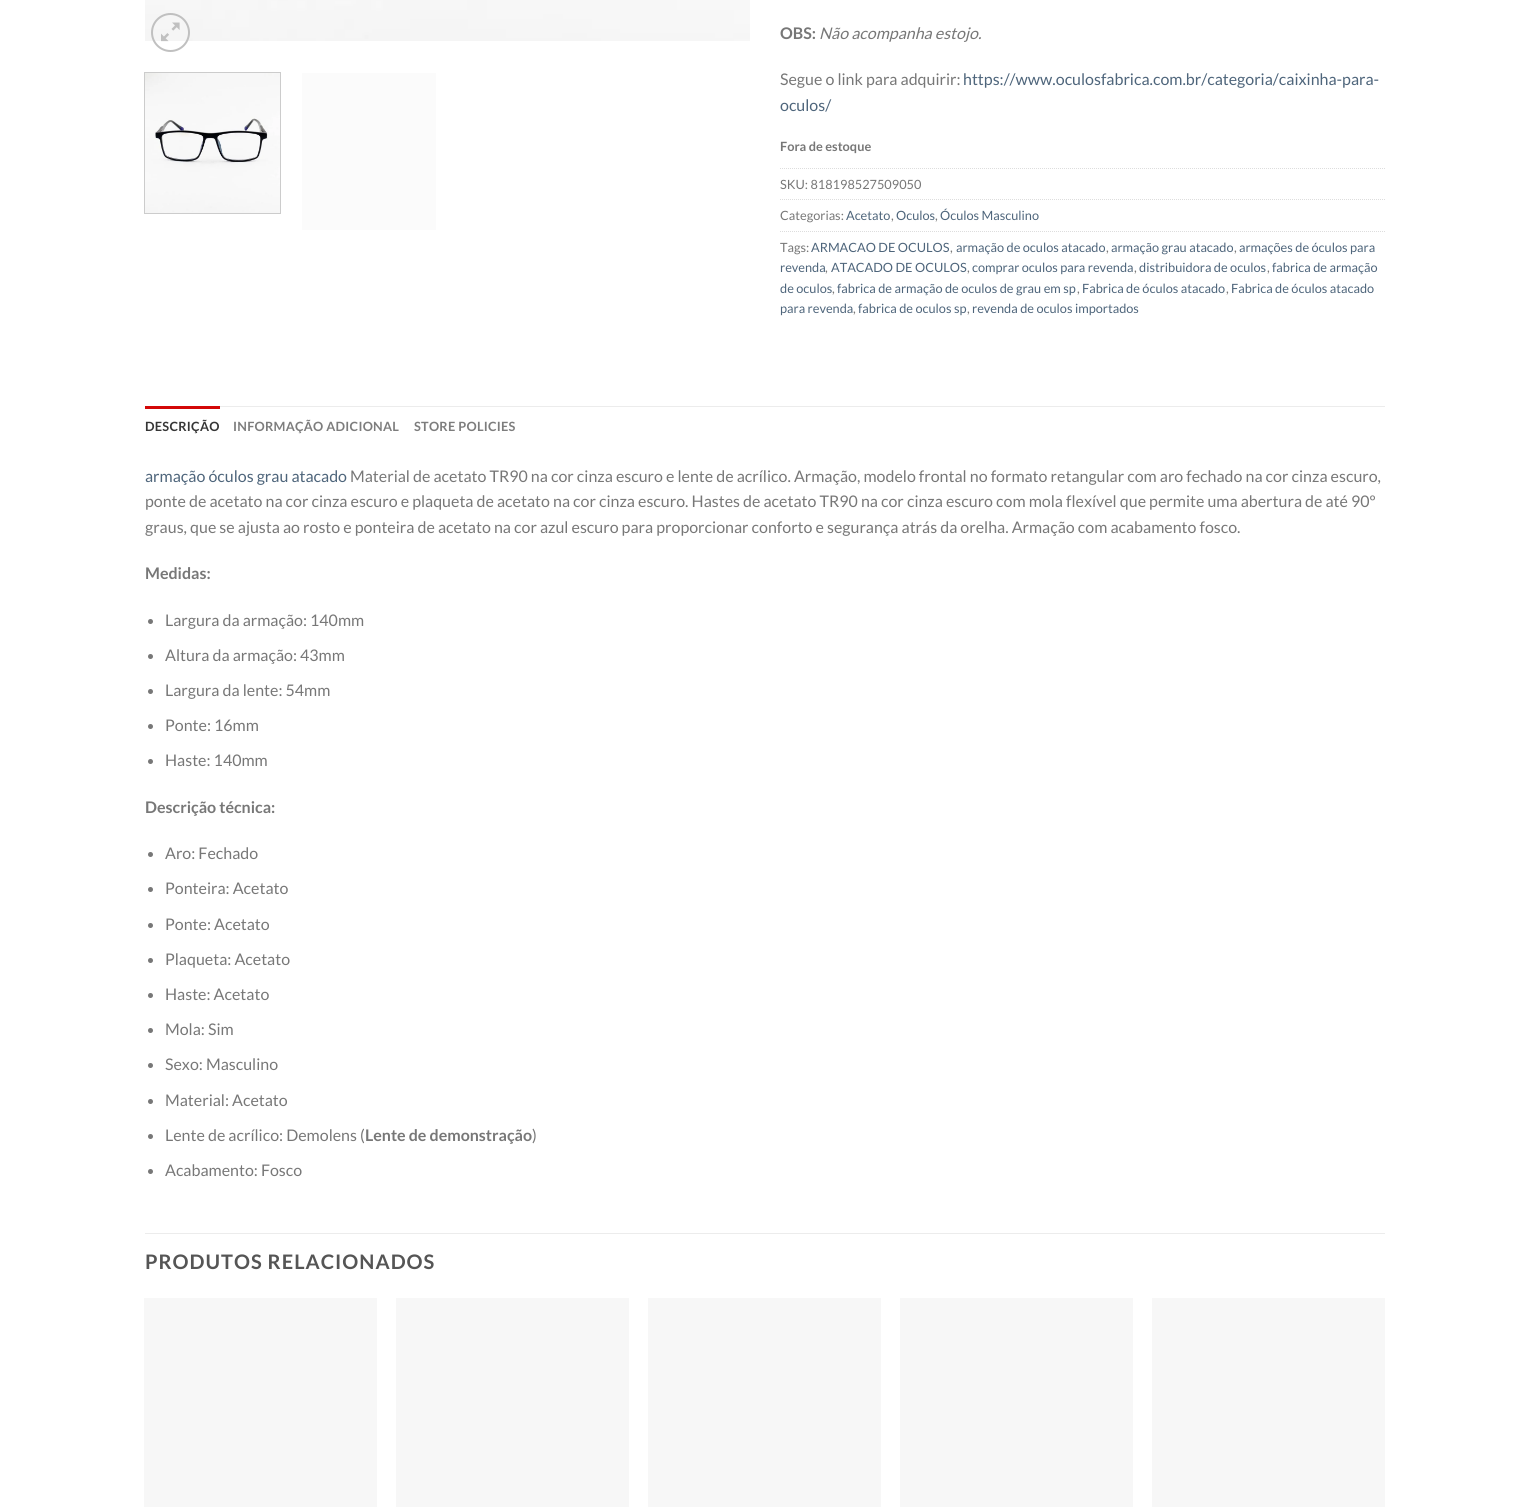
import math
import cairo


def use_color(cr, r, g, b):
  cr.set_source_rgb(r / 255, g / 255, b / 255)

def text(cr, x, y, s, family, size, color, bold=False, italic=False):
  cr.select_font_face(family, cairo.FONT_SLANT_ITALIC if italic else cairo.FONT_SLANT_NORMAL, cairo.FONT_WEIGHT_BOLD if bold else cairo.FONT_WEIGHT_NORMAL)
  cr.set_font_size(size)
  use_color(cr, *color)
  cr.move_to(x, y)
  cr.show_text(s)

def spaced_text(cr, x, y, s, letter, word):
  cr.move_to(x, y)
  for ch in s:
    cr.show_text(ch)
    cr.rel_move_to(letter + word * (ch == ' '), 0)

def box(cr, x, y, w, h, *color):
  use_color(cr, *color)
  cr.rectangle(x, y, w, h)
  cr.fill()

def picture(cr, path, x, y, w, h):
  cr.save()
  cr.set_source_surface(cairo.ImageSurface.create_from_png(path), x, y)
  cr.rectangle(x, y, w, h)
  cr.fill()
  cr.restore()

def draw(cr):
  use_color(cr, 255, 255, 255)
  cr.paint()
  picture(cr, "img_01.png", 145, 0, 605, 41)
  cr.arc(170.5, 32.5, 18.5, 0, 2 * math.pi)
  use_color(cr, 192, 192, 192)
  cr.stroke()
  picture(cr, "img_02.png", 161, 22, 19, 20)
  cr.rectangle(144.5, 72.5, 136, 141)
  use_color(cr, 204, 204, 204)
  cr.set_line_width(1)
  cr.stroke()
  picture(cr, "img_03.png", 145, 73, 135, 140)
  box(cr, 302, 73, 134, 157, 251, 251, 251)
  cr.new_path()
  cr.move_to(780, 168.5)
  cr.line_to(1385, 168.5)
  use_color(cr, 221, 221, 221)
  cr.set_dash([1, 1])
  cr.stroke()
  cr.new_path()
  cr.move_to(780, 199.5)
  cr.line_to(1385, 199.5)
  cr.stroke()
  cr.new_path()
  cr.move_to(780, 231.5)
  cr.line_to(1385, 231.5)
  cr.stroke()
  box(cr, 220, 406, 1165, 1, 236, 236, 236)
  box(cr, 145, 406, 75, 3, 211, 7, 7)
  use_color(cr, 119, 119, 119)
  cr.arc(150.5, 621.5, 2.5, 0, 2 * math.pi)
  cr.fill()
  cr.arc(150.5, 656.5, 2.5, 0, 2 * math.pi)
  cr.fill()
  cr.arc(150.5, 691.5, 2.5, 0, 2 * math.pi)
  cr.fill()
  cr.arc(150.5, 726.5, 2.5, 0, 2 * math.pi)
  cr.fill()
  cr.arc(150.5, 761.5, 2.5, 0, 2 * math.pi)
  cr.fill()
  cr.arc(150.5, 854.5, 2.5, 0, 2 * math.pi)
  cr.fill()
  cr.arc(150.5, 889.5, 2.5, 0, 2 * math.pi)
  cr.fill()
  cr.arc(150.5, 925.5, 2.5, 0, 2 * math.pi)
  cr.fill()
  cr.arc(150.5, 960.5, 2.5, 0, 2 * math.pi)
  cr.fill()
  cr.arc(150.5, 995.5, 2.5, 0, 2 * math.pi)
  cr.fill()
  cr.arc(150.5, 1030.5, 2.5, 0, 2 * math.pi)
  cr.fill()
  cr.arc(150.5, 1065.5, 2.5, 0, 2 * math.pi)
  cr.fill()
  cr.arc(150.5, 1101.5, 2.5, 0, 2 * math.pi)
  cr.fill()
  cr.arc(150.5, 1136.5, 2.5, 0, 2 * math.pi)
  cr.fill()
  cr.arc(150.5, 1171.5, 2.5, 0, 2 * math.pi)
  cr.fill()
  box(cr, 145, 1233, 1240, 1, 236, 236, 236)
  box(cr, 144, 1298, 233, 209, 247, 247, 247)
  box(cr, 396, 1298, 233, 209, 247, 247, 247)
  box(cr, 648, 1298, 233, 209, 247, 247, 247)
  box(cr, 900, 1298, 233, 209, 247, 247, 247)
  box(cr, 1152, 1298, 233, 209, 247, 247, 247)
  text(cr, 780, 39, "OBS:", "Lato", 16, (119, 119, 119), bold=True)
  text(cr, 819, 39, "Não acompanha estojo.", "Lato", 16, (119, 119, 119), italic=True)
  text(cr, 780, 85, "Segue o link para adquirir:", "Lato", 16, (119, 119, 119))
  text(cr, 963, 85, "https://www.oculosfabrica.com.br/categoria/caixinha-para-", "Lato", 16, (78, 101, 123))
  text(cr, 780, 111, "oculos/", "Lato", 16, (78, 101, 123))
  text(cr, 780, 151, "Fora de estoque", "Lato", 12.75, (119, 119, 119), bold=True)
  text(cr, 780, 189, "SKU: 818198527509050", "Lato", 12.75, (119, 119, 119))
  text(cr, 780, 220, "Categorias:", "Lato", 12.75, (119, 119, 119))
  text(cr, 846, 220, "Acetato", "Lato", 12.75, (78, 101, 123))
  text(cr, 891, 220, ",", "Lato", 12.75, (119, 119, 119))
  text(cr, 896, 220, "Oculos", "Lato", 12.75, (78, 101, 123))
  text(cr, 935, 220, ",", "Lato", 12.75, (119, 119, 119))
  text(cr, 940, 220, "Óculos Masculino", "Lato", 12.75, (78, 101, 123))
  text(cr, 780, 252, "Tags:", "Lato", 12.75, (119, 119, 119))
  text(cr, 811, 252, "ARMACAO DE OCULOS", "Lato", 12.75, (78, 101, 123))
  text(cr, 950, 252, ",", "Lato", 12.75, (119, 119, 119))
  text(cr, 956, 252, "armação de oculos atacado", "Lato", 12.75, (78, 101, 123))
  text(cr, 1106, 252, ",", "Lato", 12.75, (119, 119, 119))
  text(cr, 1111, 252, "armação grau atacado", "Lato", 12.75, (78, 101, 123))
  text(cr, 1234, 252, ",", "Lato", 12.75, (119, 119, 119))
  text(cr, 1239, 252, "armações de óculos para", "Lato", 12.75, (78, 101, 123))
  text(cr, 780, 272, "revenda", "Lato", 12.75, (78, 101, 123))
  text(cr, 825, 272, ",", "Lato", 12.75, (119, 119, 119))
  text(cr, 831, 272, "ATACADO DE OCULOS", "Lato", 12.75, (78, 101, 123))
  text(cr, 967, 272, ",", "Lato", 12.75, (119, 119, 119))
  text(cr, 972, 272, "comprar oculos para revenda", "Lato", 12.75, (78, 101, 123))
  text(cr, 1134, 272, ",", "Lato", 12.75, (119, 119, 119))
  text(cr, 1139, 272, "distribuidora de oculos", "Lato", 12.75, (78, 101, 123))
  text(cr, 1267, 272, ",", "Lato", 12.75, (119, 119, 119))
  text(cr, 1272, 272, "fabrica de armação", "Lato", 12.75, (78, 101, 123))
  text(cr, 780, 293, "de oculos", "Lato", 12.75, (78, 101, 123))
  text(cr, 832, 293, ",", "Lato", 12.75, (119, 119, 119))
  text(cr, 837, 293, "fabrica de armação de oculos de grau em sp", "Lato", 12.75, (78, 101, 123))
  text(cr, 1077, 293, ",", "Lato", 12.75, (119, 119, 119))
  text(cr, 1082, 293, "Fabrica de óculos atacado", "Lato", 12.75, (78, 101, 123))
  text(cr, 1226, 293, ",", "Lato", 12.75, (119, 119, 119))
  text(cr, 1231, 293, "Fabrica de óculos atacado", "Lato", 12.75, (78, 101, 123))
  text(cr, 780, 313, "para revenda", "Lato", 12.75, (78, 101, 123))
  text(cr, 853, 313, ",", "Lato", 12.75, (119, 119, 119))
  text(cr, 858, 313, "fabrica de oculos sp", "Lato", 12.75, (78, 101, 123))
  text(cr, 967, 313, ",", "Lato", 12.75, (119, 119, 119))
  text(cr, 972, 313, "revenda de oculos importados", "Lato", 12.75, (78, 101, 123))
  cr.select_font_face("Lato", cairo.FONT_SLANT_NORMAL, cairo.FONT_WEIGHT_BOLD)
  use_color(cr, 54, 54, 54)
  spaced_text(cr, 145, 431, "DESCRIÇÃO", 0.25, 0)
  use_color(cr, 125, 125, 125)
  spaced_text(cr, 233, 431, "INFORMAÇÃO ADICIONAL", 0.25, 0)
  spaced_text(cr, 414, 431, "STORE POLICIES", 0.25, 0)
  text(cr, 145, 482, "armação óculos grau atacado", "Lato", 16, (78, 101, 123))
  text(cr, 350, 482, "Material de acetato TR90 na cor cinza escuro e lente de acrílico. Armação, modelo frontal no formato retangular com aro fechado na cor cinza escuro,", "Lato", 16, (119, 119, 119))
  text(cr, 145, 507, "ponte de acetato na cor cinza escuro e plaqueta de acetato na cor cinza escuro. Hastes de acetato TR90 na cor cinza escuro com mola flexível que permite uma abertura de até 90º", "Lato", 16, (119, 119, 119))
  text(cr, 145, 533, "graus, que se ajusta ao rosto e ponteira de acetato na cor azul escuro para proporcionar conforto e segurança atrás da orelha. Armação com acabamento fosco.", "Lato", 16, (119, 119, 119))
  text(cr, 145, 579, "Medidas:", "Lato", 16, (119, 119, 119), bold=True)
  text(cr, 165, 626, "Largura da armação: 140mm", "Lato", 16, (119, 119, 119))
  text(cr, 165, 661, "Altura da armação: 43mm", "Lato", 16, (119, 119, 119))
  text(cr, 165, 696, "Largura da lente: 54mm", "Lato", 16, (119, 119, 119))
  text(cr, 165, 731, "Ponte: 16mm", "Lato", 16, (119, 119, 119))
  text(cr, 165, 766, "Haste: 140mm", "Lato", 16, (119, 119, 119))
  text(cr, 145, 813, "Descrição técnica:", "Lato", 16, (119, 119, 119), bold=True)
  text(cr, 165, 859, "Aro: Fechado", "Lato", 16, (119, 119, 119))
  text(cr, 165, 894, "Ponteira: Acetato", "Lato", 16, (119, 119, 119))
  text(cr, 165, 930, "Ponte: Acetato", "Lato", 16, (119, 119, 119))
  text(cr, 165, 965, "Plaqueta: Acetato", "Lato", 16, (119, 119, 119))
  text(cr, 165, 1000, "Haste: Acetato", "Lato", 16, (119, 119, 119))
  text(cr, 165, 1035, "Mola: Sim", "Lato", 16, (119, 119, 119))
  text(cr, 165, 1070, "Sexo: Masculino", "Lato", 16, (119, 119, 119))
  text(cr, 165, 1106, "Material: Acetato", "Lato", 16, (119, 119, 119))
  text(cr, 165, 1141, "Lente de acrílico: Demolens (", "Lato", 16, (119, 119, 119))
  text(cr, 365, 1141, "Lente de demonstração", "Lato", 16, (119, 119, 119), bold=True)
  text(cr, 532, 1141, ")", "Lato", 16, (119, 119, 119))
  text(cr, 165, 1176, "Acabamento: Fosco", "Lato", 16, (119, 119, 119))
  cr.select_font_face("Lato", cairo.FONT_SLANT_NORMAL, cairo.FONT_WEIGHT_BOLD)
  cr.set_font_size(20)
  use_color(cr, 85, 85, 85)
  spaced_text(cr, 145, 1269, "PRODUTOS RELACIONADOS", 1, 0)


surface = cairo.ImageSurface(cairo.FORMAT_RGB24, 1529, 1507)
cr = cairo.Context(surface)
options = cairo.FontOptions()
options.set_hint_metrics(cairo.HINT_METRICS_OFF)
options.set_hint_style(cairo.HINT_STYLE_NONE)
cr.set_font_options(options)
cr.set_miter_limit(4)
draw(cr)
surface.write_to_png("out.png")
